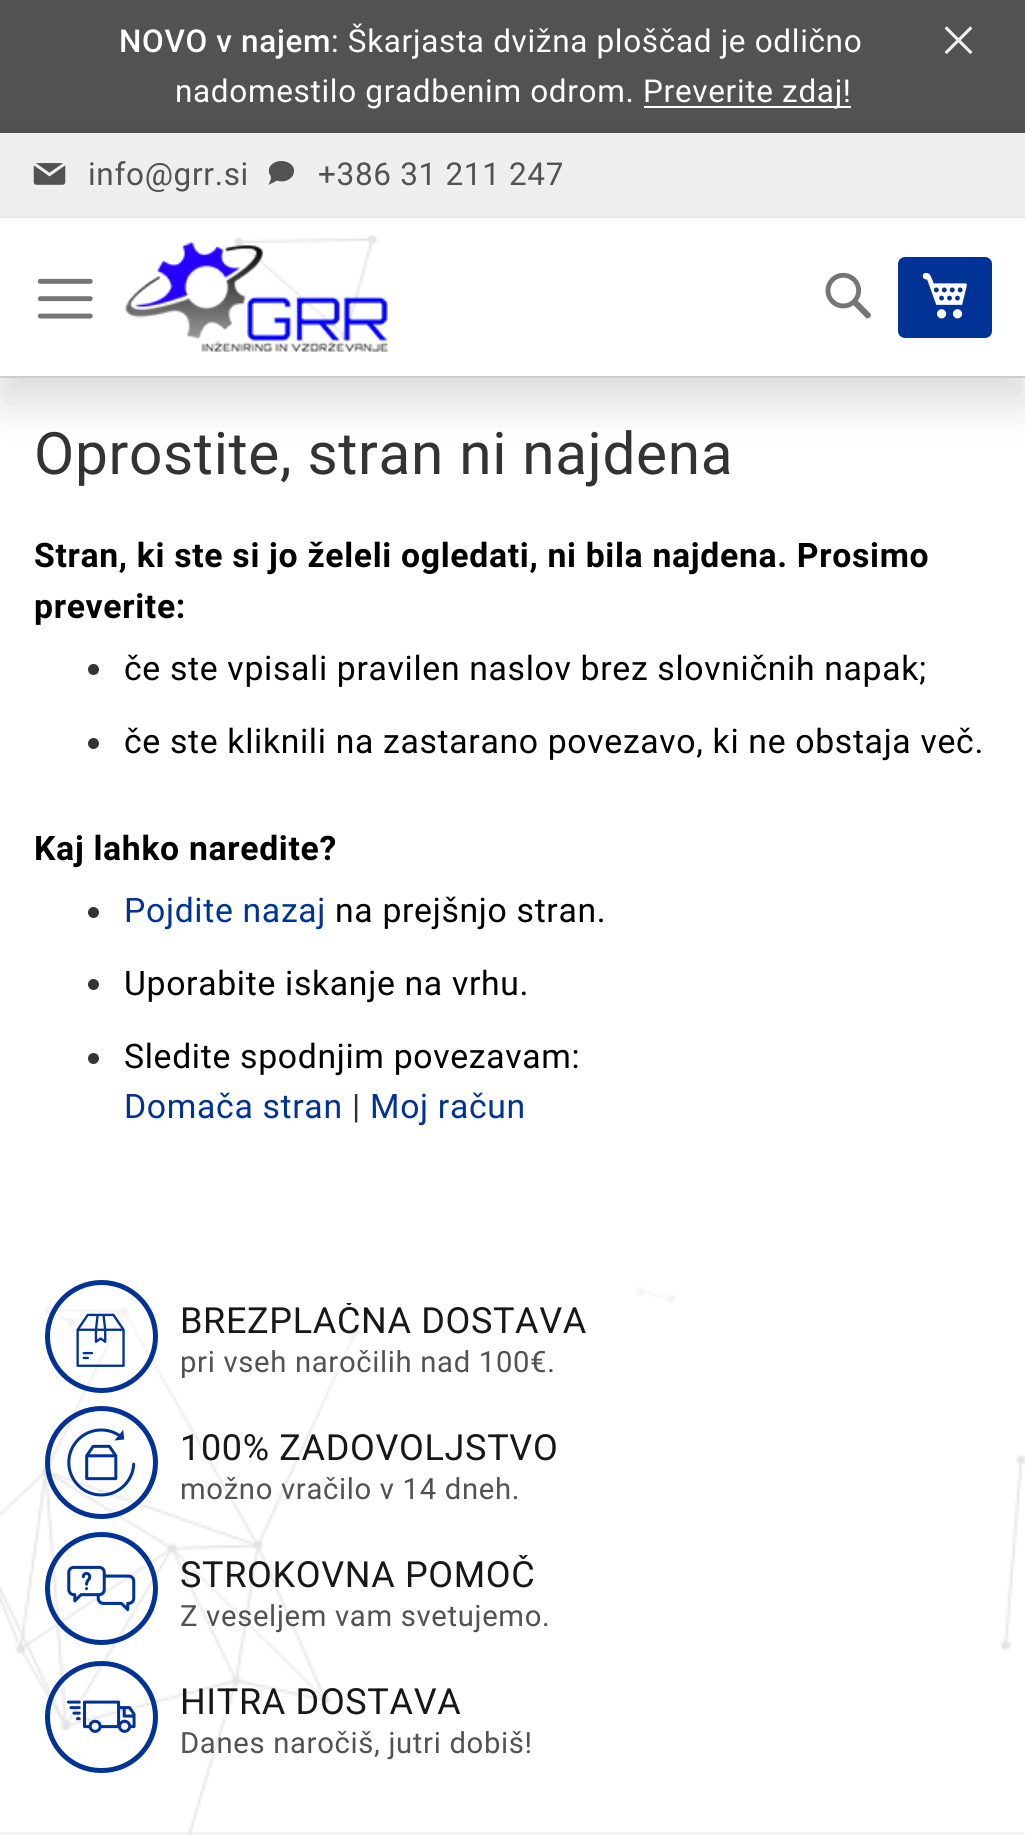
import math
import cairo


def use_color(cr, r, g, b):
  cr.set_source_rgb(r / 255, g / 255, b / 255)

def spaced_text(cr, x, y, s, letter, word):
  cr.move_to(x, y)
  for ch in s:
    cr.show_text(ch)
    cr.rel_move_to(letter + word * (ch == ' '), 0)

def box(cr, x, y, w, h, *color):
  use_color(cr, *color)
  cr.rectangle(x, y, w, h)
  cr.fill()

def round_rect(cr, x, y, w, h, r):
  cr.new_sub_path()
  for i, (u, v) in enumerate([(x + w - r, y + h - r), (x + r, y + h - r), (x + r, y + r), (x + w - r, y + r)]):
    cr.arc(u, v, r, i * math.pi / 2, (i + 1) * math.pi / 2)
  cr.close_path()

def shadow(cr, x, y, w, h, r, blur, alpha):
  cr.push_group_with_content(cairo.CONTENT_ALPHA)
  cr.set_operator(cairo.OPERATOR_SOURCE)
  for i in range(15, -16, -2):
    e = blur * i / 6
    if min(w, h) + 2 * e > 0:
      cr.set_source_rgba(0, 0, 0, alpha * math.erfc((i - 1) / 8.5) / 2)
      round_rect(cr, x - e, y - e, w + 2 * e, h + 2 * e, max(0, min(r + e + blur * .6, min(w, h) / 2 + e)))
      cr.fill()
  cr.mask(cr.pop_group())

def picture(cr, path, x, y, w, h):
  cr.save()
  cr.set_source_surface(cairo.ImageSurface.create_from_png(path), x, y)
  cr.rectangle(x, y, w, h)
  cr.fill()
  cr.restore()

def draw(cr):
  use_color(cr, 255, 255, 255)
  cr.paint()
  box(cr, 0, 0, 1025, 133, 82, 82, 82)
  box(cr, 644, 106, 207, 2, 255, 255, 255)
  picture(cr, "img_01.png", 944, 26, 29, 29)
  cr.save()
  cr.set_fill_rule(cairo.FILL_RULE_EVEN_ODD)
  cr.new_path()
  cr.move_to(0, 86)
  cr.line_to(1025, 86)
  cr.line_to(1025, 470)
  cr.line_to(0, 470)
  cr.close_path()
  cr.move_to(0, 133)
  cr.line_to(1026, 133)
  cr.line_to(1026, 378)
  cr.line_to(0, 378)
  cr.close_path()
  cr.clip()
  use_color(cr, 0, 0, 0)
  shadow(cr, 0, 155, 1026, 246, 0, 22.5, 0.15)
  cr.restore()
  box(cr, 0, 376, 1025, 2, 204, 204, 204)
  box(cr, 0, 133, 1025, 83, 239, 239, 239)
  box(cr, 0, 216, 1025, 2, 232, 232, 232)
  picture(cr, "img_02.png", 33, 163, 33, 22)
  picture(cr, "img_03.png", 268, 161, 27, 24)
  picture(cr, "img_04.png", 233, 233, 146, 109)
  picture(cr, "img_05.png", 37, 278, 56, 41)
  picture(cr, "img_06.png", 125, 242, 263, 110)
  picture(cr, "img_07.png", 825, 272, 46, 47)
  use_color(cr, 1, 51, 150)
  round_rect(cr, 898, 257, 94, 81, 7)
  cr.fill()
  picture(cr, "img_08.png", 922, 272, 45, 47)
  use_color(cr, 51, 51, 51)
  cr.arc(93.5, 669.5, 5.5, 0, 2 * math.pi)
  cr.fill()
  cr.arc(93.5, 743.5, 5.5, 0, 2 * math.pi)
  cr.fill()
  cr.arc(93.5, 912.5, 5.5, 0, 2 * math.pi)
  cr.fill()
  cr.arc(93.5, 984.5, 5.5, 0, 2 * math.pi)
  cr.fill()
  cr.arc(93.5, 1058.5, 5.5, 0, 2 * math.pi)
  cr.fill()
  box(cr, 0, 1832, 1025, 3, 244, 244, 244)
  picture(cr, "img_09.png", 0, 1286, 1025, 549)
  gradient = cairo.LinearGradient(513, 1460, 513, 1190)
  gradient.add_color_stop_rgba(0, 1, 1, 1, 0)
  gradient.add_color_stop_rgba(1, 1, 1, 1, 1)
  cr.set_source(gradient)
  cr.rectangle(44, 1286, 633, 144)
  cr.fill()
  cr.arc(101.5, 1336.5, 54, 0, 2 * math.pi)
  use_color(cr, 1, 51, 150)
  cr.set_line_width(5)
  cr.stroke()
  picture(cr, "img_10.png", 76, 1313, 49, 54)
  cr.arc(101.5, 1462.5, 54, 0, 2 * math.pi)
  cr.stroke()
  picture(cr, "img_11.png", 67, 1428, 69, 69)
  cr.arc(101.5, 1588.5, 54, 0, 2 * math.pi)
  cr.stroke()
  picture(cr, "img_12.png", 67, 1565, 69, 47)
  round_rect(cr, 47.5, 1663.5, 108, 107, 53.5)
  cr.stroke()
  picture(cr, "img_13.png", 66, 1700, 70, 33)
  cr.select_font_face("Roboto Medium")
  cr.set_font_size(31.5)
  use_color(cr, 255, 255, 255)
  spaced_text(cr, 119, 52, "NOVO v najem", 0.67, 0)
  cr.select_font_face("Roboto")
  spaced_text(cr, 331, 52, ": Škarjasta dvižna ploščad je odlično", 0.67, 0)
  spaced_text(cr, 175, 102, "nadomestilo gradbenim odrom.", 0.67, 0)
  spaced_text(cr, 643, 102, "Preverite zdaj!", 0.67, 0)
  use_color(cr, 82, 82, 82)
  spaced_text(cr, 88, 185, "info@grr.si", 0.67, 0)
  spaced_text(cr, 318, 185, "+386 31 211 247", 0.67, 0)
  cr.set_font_size(58.5)
  use_color(cr, 51, 51, 51)
  spaced_text(cr, 34, 474, "Oprostite, stran ni najdena", 0.67, 0)
  cr.select_font_face("Roboto", cairo.FONT_SLANT_NORMAL, cairo.FONT_WEIGHT_BOLD)
  cr.set_font_size(33.75)
  use_color(cr, 0, 0, 0)
  spaced_text(cr, 34, 567, "Stran, ki ste si jo želeli ogledati, ni bila najdena. Prosimo", 0.67, 0)
  spaced_text(cr, 34, 618, "preverite:", 0.67, 0)
  cr.select_font_face("Roboto")
  spaced_text(cr, 124, 680, "če ste vpisali pravilen naslov brez slovničnih napak;", 0.67, 0)
  spaced_text(cr, 124, 753, "če ste kliknili na zastarano povezavo, ki ne obstaja več.", 0.67, 0)
  cr.select_font_face("Roboto", cairo.FONT_SLANT_NORMAL, cairo.FONT_WEIGHT_BOLD)
  spaced_text(cr, 34, 860, "Kaj lahko naredite?", 0.67, 0)
  cr.select_font_face("Roboto")
  use_color(cr, 1, 51, 150)
  spaced_text(cr, 124, 922, "Pojdite nazaj", 0.67, 0)
  use_color(cr, 0, 0, 0)
  spaced_text(cr, 335, 922, "na prejšnjo stran.", 0.67, 0)
  spaced_text(cr, 124, 995, "Uporabite iskanje na vrhu.", 0.67, 0)
  spaced_text(cr, 124, 1068, "Sledite spodnjim povezavam:", 0.67, 0)
  use_color(cr, 1, 51, 150)
  spaced_text(cr, 124, 1118, "Domača stran", 0.67, 0)
  use_color(cr, 51, 51, 51)
  spaced_text(cr, 352, 1118, "|", 0.67, 0)
  use_color(cr, 1, 51, 150)
  spaced_text(cr, 370, 1118, "Moj račun", 0.67, 0)
  cr.save()
  cr.rectangle(180, 1303, 801, 40)
  cr.clip()
  cr.set_font_size(36)
  use_color(cr, 23, 23, 23)
  spaced_text(cr, 180, 1333, "BREZPLAČNA DOSTAVA", 0.67, 0)
  cr.restore()
  cr.set_font_size(29.25)
  use_color(cr, 82, 82, 82)
  spaced_text(cr, 180, 1372, "pri vseh naročilih nad 100€.", 0.67, 0)
  cr.set_font_size(36)
  use_color(cr, 23, 23, 23)
  spaced_text(cr, 180, 1460, "100% ZADOVOLJSTVO", 0.67, 0)
  cr.set_font_size(29.25)
  use_color(cr, 82, 82, 82)
  spaced_text(cr, 180, 1499, "možno vračilo v 14 dneh.", 0.67, 0)
  cr.save()
  cr.rectangle(180, 1555, 801, 43)
  cr.clip()
  cr.set_font_size(36)
  use_color(cr, 23, 23, 23)
  spaced_text(cr, 180, 1587, "STROKOVNA POMOČ", 0.67, 0)
  cr.restore()
  spaced_text(cr, 180, 1626, "Z veseljem vam svetujemo.", 0.67, 0)
  cr.set_font_size(36)
  use_color(cr, 23, 23, 23)
  spaced_text(cr, 180, 1714, "HITRA DOSTAVA", 0.67, 0)
  cr.set_font_size(29.25)
  use_color(cr, 82, 82, 82)
  spaced_text(cr, 180, 1753, "Danes naročiš, jutri dobiš!", 0.67, 0)


surface = cairo.ImageSurface(cairo.FORMAT_RGB24, 1025, 1835)
cr = cairo.Context(surface)
options = cairo.FontOptions()
options.set_hint_metrics(cairo.HINT_METRICS_OFF)
options.set_hint_style(cairo.HINT_STYLE_NONE)
cr.set_font_options(options)
cr.set_miter_limit(4)
draw(cr)
surface.write_to_png("out.png")
